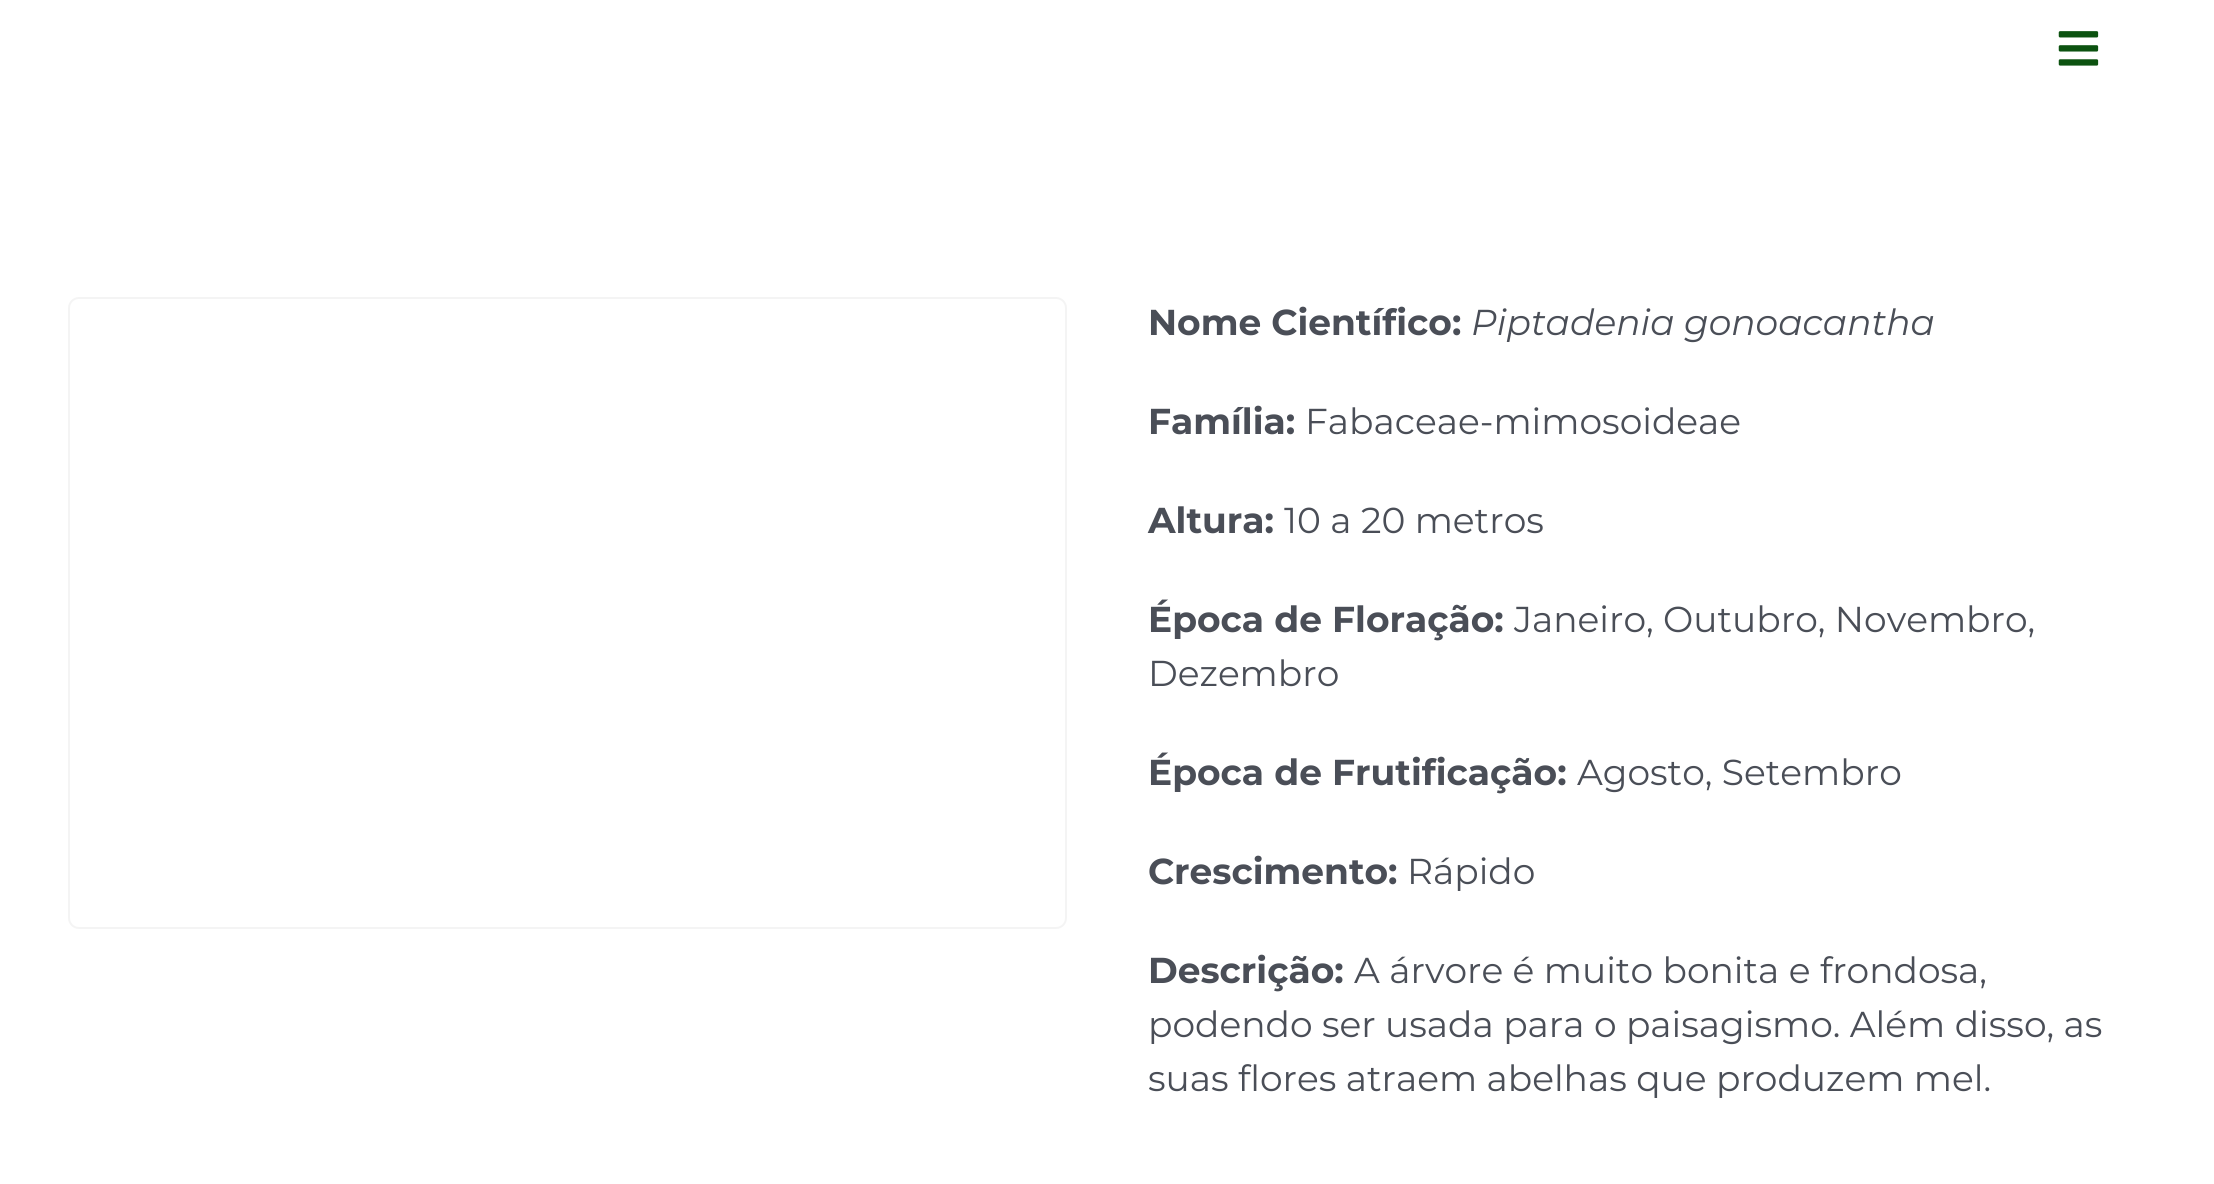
import math
import cairo


def use_color(cr, r, g, b):
  cr.set_source_rgb(r / 255, g / 255, b / 255)

def text(cr, x, y, s, family, size, color, bold=False, italic=False):
  cr.select_font_face(family, cairo.FONT_SLANT_ITALIC if italic else cairo.FONT_SLANT_NORMAL, cairo.FONT_WEIGHT_BOLD if bold else cairo.FONT_WEIGHT_NORMAL)
  cr.set_font_size(size)
  use_color(cr, *color)
  cr.move_to(x, y)
  cr.show_text(s)

def round_rect(cr, x, y, w, h, r):
  cr.new_sub_path()
  for i, (u, v) in enumerate([(x + w - r, y + h - r), (x + r, y + h - r), (x + r, y + r), (x + w - r, y + r)]):
    cr.arc(u, v, r, i * math.pi / 2, (i + 1) * math.pi / 2)
  cr.close_path()

def picture(cr, path, x, y, w, h):
  cr.save()
  cr.set_source_surface(cairo.ImageSurface.create_from_png(path), x, y)
  cr.rectangle(x, y, w, h)
  cr.fill()
  cr.restore()

def draw(cr):
  use_color(cr, 255, 255, 255)
  cr.paint()
  picture(cr, "img_01.png", 2058, 31, 41, 35)
  round_rect(cr, 69, 298, 997, 630, 10)
  use_color(cr, 244, 244, 244)
  cr.stroke()
  text(cr, 1148, 335, "Nome Científico:", "Montserrat", 36, (74, 78, 87), bold=True)
  text(cr, 1471, 335, "Piptadenia gonoacantha", "Montserrat", 36, (74, 78, 87), italic=True)
  text(cr, 1148, 434, "Família:", "Montserrat", 36, (74, 78, 87), bold=True)
  text(cr, 1305, 434, "Fabaceae-mimosoideae", "Montserrat Thin", 36, (74, 78, 87))
  text(cr, 1148, 533, "Altura:", "Montserrat", 36, (74, 78, 87), bold=True)
  text(cr, 1284, 533, "10 a 20 metros", "Montserrat Thin", 36, (74, 78, 87))
  text(cr, 1148, 632, "Época de Floração:", "Montserrat", 36, (74, 78, 87), bold=True)
  text(cr, 1514, 632, "Janeiro, Outubro, Novembro,", "Montserrat Thin", 36, (74, 78, 87))
  text(cr, 1148, 686, "Dezembro", "Montserrat Thin", 36, (74, 78, 87))
  text(cr, 1148, 785, "Época de Frutificação:", "Montserrat", 36, (74, 78, 87), bold=True)
  text(cr, 1577, 785, "Agosto, Setembro", "Montserrat Thin", 36, (74, 78, 87))
  text(cr, 1148, 884, "Crescimento:", "Montserrat", 36, (74, 78, 87), bold=True)
  text(cr, 1407, 884, "Rápido", "Montserrat Thin", 36, (74, 78, 87))
  text(cr, 1148, 983, "Descrição:", "Montserrat", 36, (74, 78, 87), bold=True)
  text(cr, 1354, 983, "A árvore é muito bonita e frondosa,", "Montserrat Thin", 36, (74, 78, 87))
  text(cr, 1148, 1037, "podendo ser usada para o paisagismo. Além disso, as", "Montserrat Thin", 36, (74, 78, 87))
  text(cr, 1148, 1091, "suas flores atraem abelhas que produzem mel.", "Montserrat Thin", 36, (74, 78, 87))


surface = cairo.ImageSurface(cairo.FORMAT_RGB24, 2214, 1184)
cr = cairo.Context(surface)
options = cairo.FontOptions()
options.set_hint_metrics(cairo.HINT_METRICS_OFF)
options.set_hint_style(cairo.HINT_STYLE_NONE)
cr.set_font_options(options)
cr.set_miter_limit(4)
draw(cr)
surface.write_to_png("out.png")
